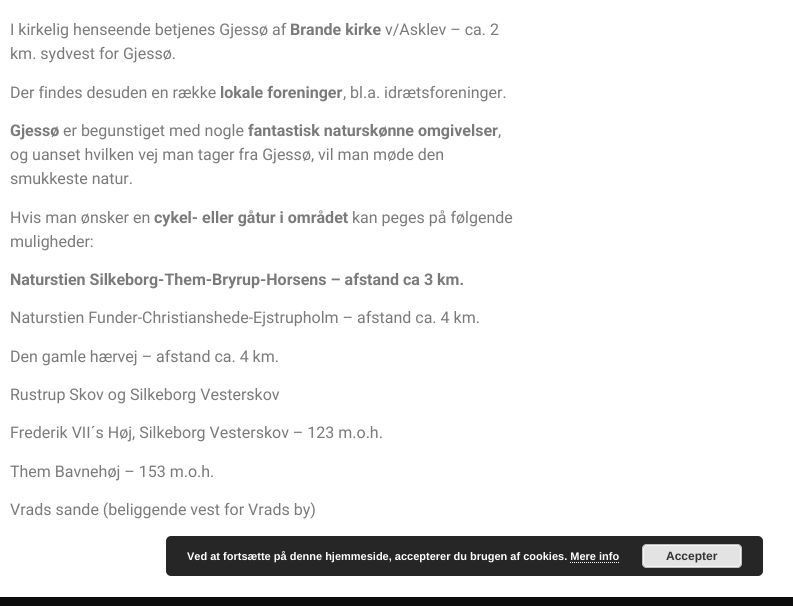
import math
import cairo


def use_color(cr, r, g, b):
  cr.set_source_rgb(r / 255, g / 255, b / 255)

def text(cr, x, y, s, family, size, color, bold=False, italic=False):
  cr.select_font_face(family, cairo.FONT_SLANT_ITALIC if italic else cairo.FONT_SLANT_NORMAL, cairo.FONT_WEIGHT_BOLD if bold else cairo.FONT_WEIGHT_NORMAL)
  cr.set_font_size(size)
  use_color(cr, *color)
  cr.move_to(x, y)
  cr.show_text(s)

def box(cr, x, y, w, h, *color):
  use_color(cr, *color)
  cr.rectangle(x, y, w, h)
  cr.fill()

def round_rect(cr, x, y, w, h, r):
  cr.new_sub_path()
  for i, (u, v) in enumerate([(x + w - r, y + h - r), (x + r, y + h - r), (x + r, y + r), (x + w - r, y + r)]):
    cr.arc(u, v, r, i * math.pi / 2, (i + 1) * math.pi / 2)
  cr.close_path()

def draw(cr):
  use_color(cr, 255, 255, 255)
  cr.paint()
  use_color(cr, 38, 38, 38)
  round_rect(cr, 166, 536, 597, 40, 5)
  cr.fill()
  use_color(cr, 227, 227, 227)
  round_rect(cr, 642, 544, 100, 24, 5)
  cr.fill()
  round_rect(cr, 643.5, 545.5, 97, 21, 3.5)
  use_color(cr, 246, 246, 246)
  cr.set_line_width(1)
  cr.stroke()
  round_rect(cr, 642.5, 544.5, 99, 23, 4.5)
  use_color(cr, 187, 187, 187)
  cr.stroke()
  cr.new_path()
  cr.move_to(570, 562.5)
  cr.line_to(619, 562.5)
  use_color(cr, 255, 255, 255)
  cr.set_dash([1, 1])
  cr.stroke()
  box(cr, 0, 597, 793, 9, 12, 12, 12)
  text(cr, 10, 35, "I kirkelig henseende betjenes Gjessø af", "Roboto", 16, (122, 122, 122))
  text(cr, 290, 35, "Brande kirke", "Roboto", 16, (122, 122, 122), bold=True)
  text(cr, 385, 35, "v/Asklev – ca. 2", "Roboto", 16, (122, 122, 122))
  text(cr, 10, 59, "km. sydvest for Gjessø.", "Roboto", 16, (122, 122, 122))
  text(cr, 10, 98, "Der findes desuden en række", "Roboto", 16, (122, 122, 122))
  text(cr, 220, 98, "lokale foreninger", "Roboto", 16, (122, 122, 122), bold=True)
  text(cr, 343, 98, ", bl.a. idrætsforeninger.", "Roboto", 16, (122, 122, 122))
  text(cr, 10, 136, "Gjessø", "Roboto", 16, (122, 122, 122), bold=True)
  text(cr, 63, 136, "er begunstiget med nogle", "Roboto", 16, (122, 122, 122))
  text(cr, 248, 136, "fantastisk naturskønne omgivelser", "Roboto", 16, (122, 122, 122), bold=True)
  text(cr, 498, 136, ",", "Roboto", 16, (122, 122, 122))
  text(cr, 10, 160, "og uanset hvilken vej man tager fra Gjessø, vil man møde den", "Roboto", 16, (122, 122, 122))
  text(cr, 10, 184, "smukkeste natur.", "Roboto", 16, (122, 122, 122))
  text(cr, 10, 223, "Hvis man ønsker en", "Roboto", 16, (122, 122, 122))
  text(cr, 154, 223, "cykel- eller gåtur i området", "Roboto", 16, (122, 122, 122), bold=True)
  text(cr, 352, 223, "kan peges på følgende", "Roboto", 16, (122, 122, 122))
  text(cr, 10, 247, "muligheder:", "Roboto", 16, (122, 122, 122))
  text(cr, 10, 285, "Naturstien Silkeborg-Them-Bryrup-Horsens – afstand ca 3 km.", "Roboto", 16, (122, 122, 122), bold=True)
  text(cr, 10, 323, "Naturstien Funder-Christianshede-Ejstrupholm – afstand ca. 4 km.", "Roboto", 16, (122, 122, 122))
  text(cr, 10, 362, "Den gamle hærvej – afstand ca. 4 km.", "Roboto", 16, (122, 122, 122))
  text(cr, 10, 400, "Rustrup Skov og Silkeborg Vesterskov", "Roboto", 16, (122, 122, 122))
  text(cr, 10, 438, "Frederik VII´s Høj, Silkeborg Vesterskov – 123 m.o.h.", "Roboto", 16, (122, 122, 122))
  text(cr, 10, 477, "Them Bavnehøj – 153 m.o.h.", "Roboto", 16, (122, 122, 122))
  text(cr, 10, 515, "Vrads sande (beliggende vest for Vrads by)", "Roboto", 16, (122, 122, 122))
  text(cr, 187, 560, "Ved at fortsætte på denne hjemmeside, accepterer du brugen af cookies. Mere info", "Liberation Sans", 11, (255, 255, 255), bold=True)
  text(cr, 666, 560, "Accepter", "Liberation Sans", 12, (51, 51, 51), bold=True)


surface = cairo.ImageSurface(cairo.FORMAT_RGB24, 793, 606)
cr = cairo.Context(surface)
options = cairo.FontOptions()
options.set_hint_metrics(cairo.HINT_METRICS_OFF)
options.set_hint_style(cairo.HINT_STYLE_NONE)
cr.set_font_options(options)
cr.set_miter_limit(4)
draw(cr)
surface.write_to_png("out.png")
